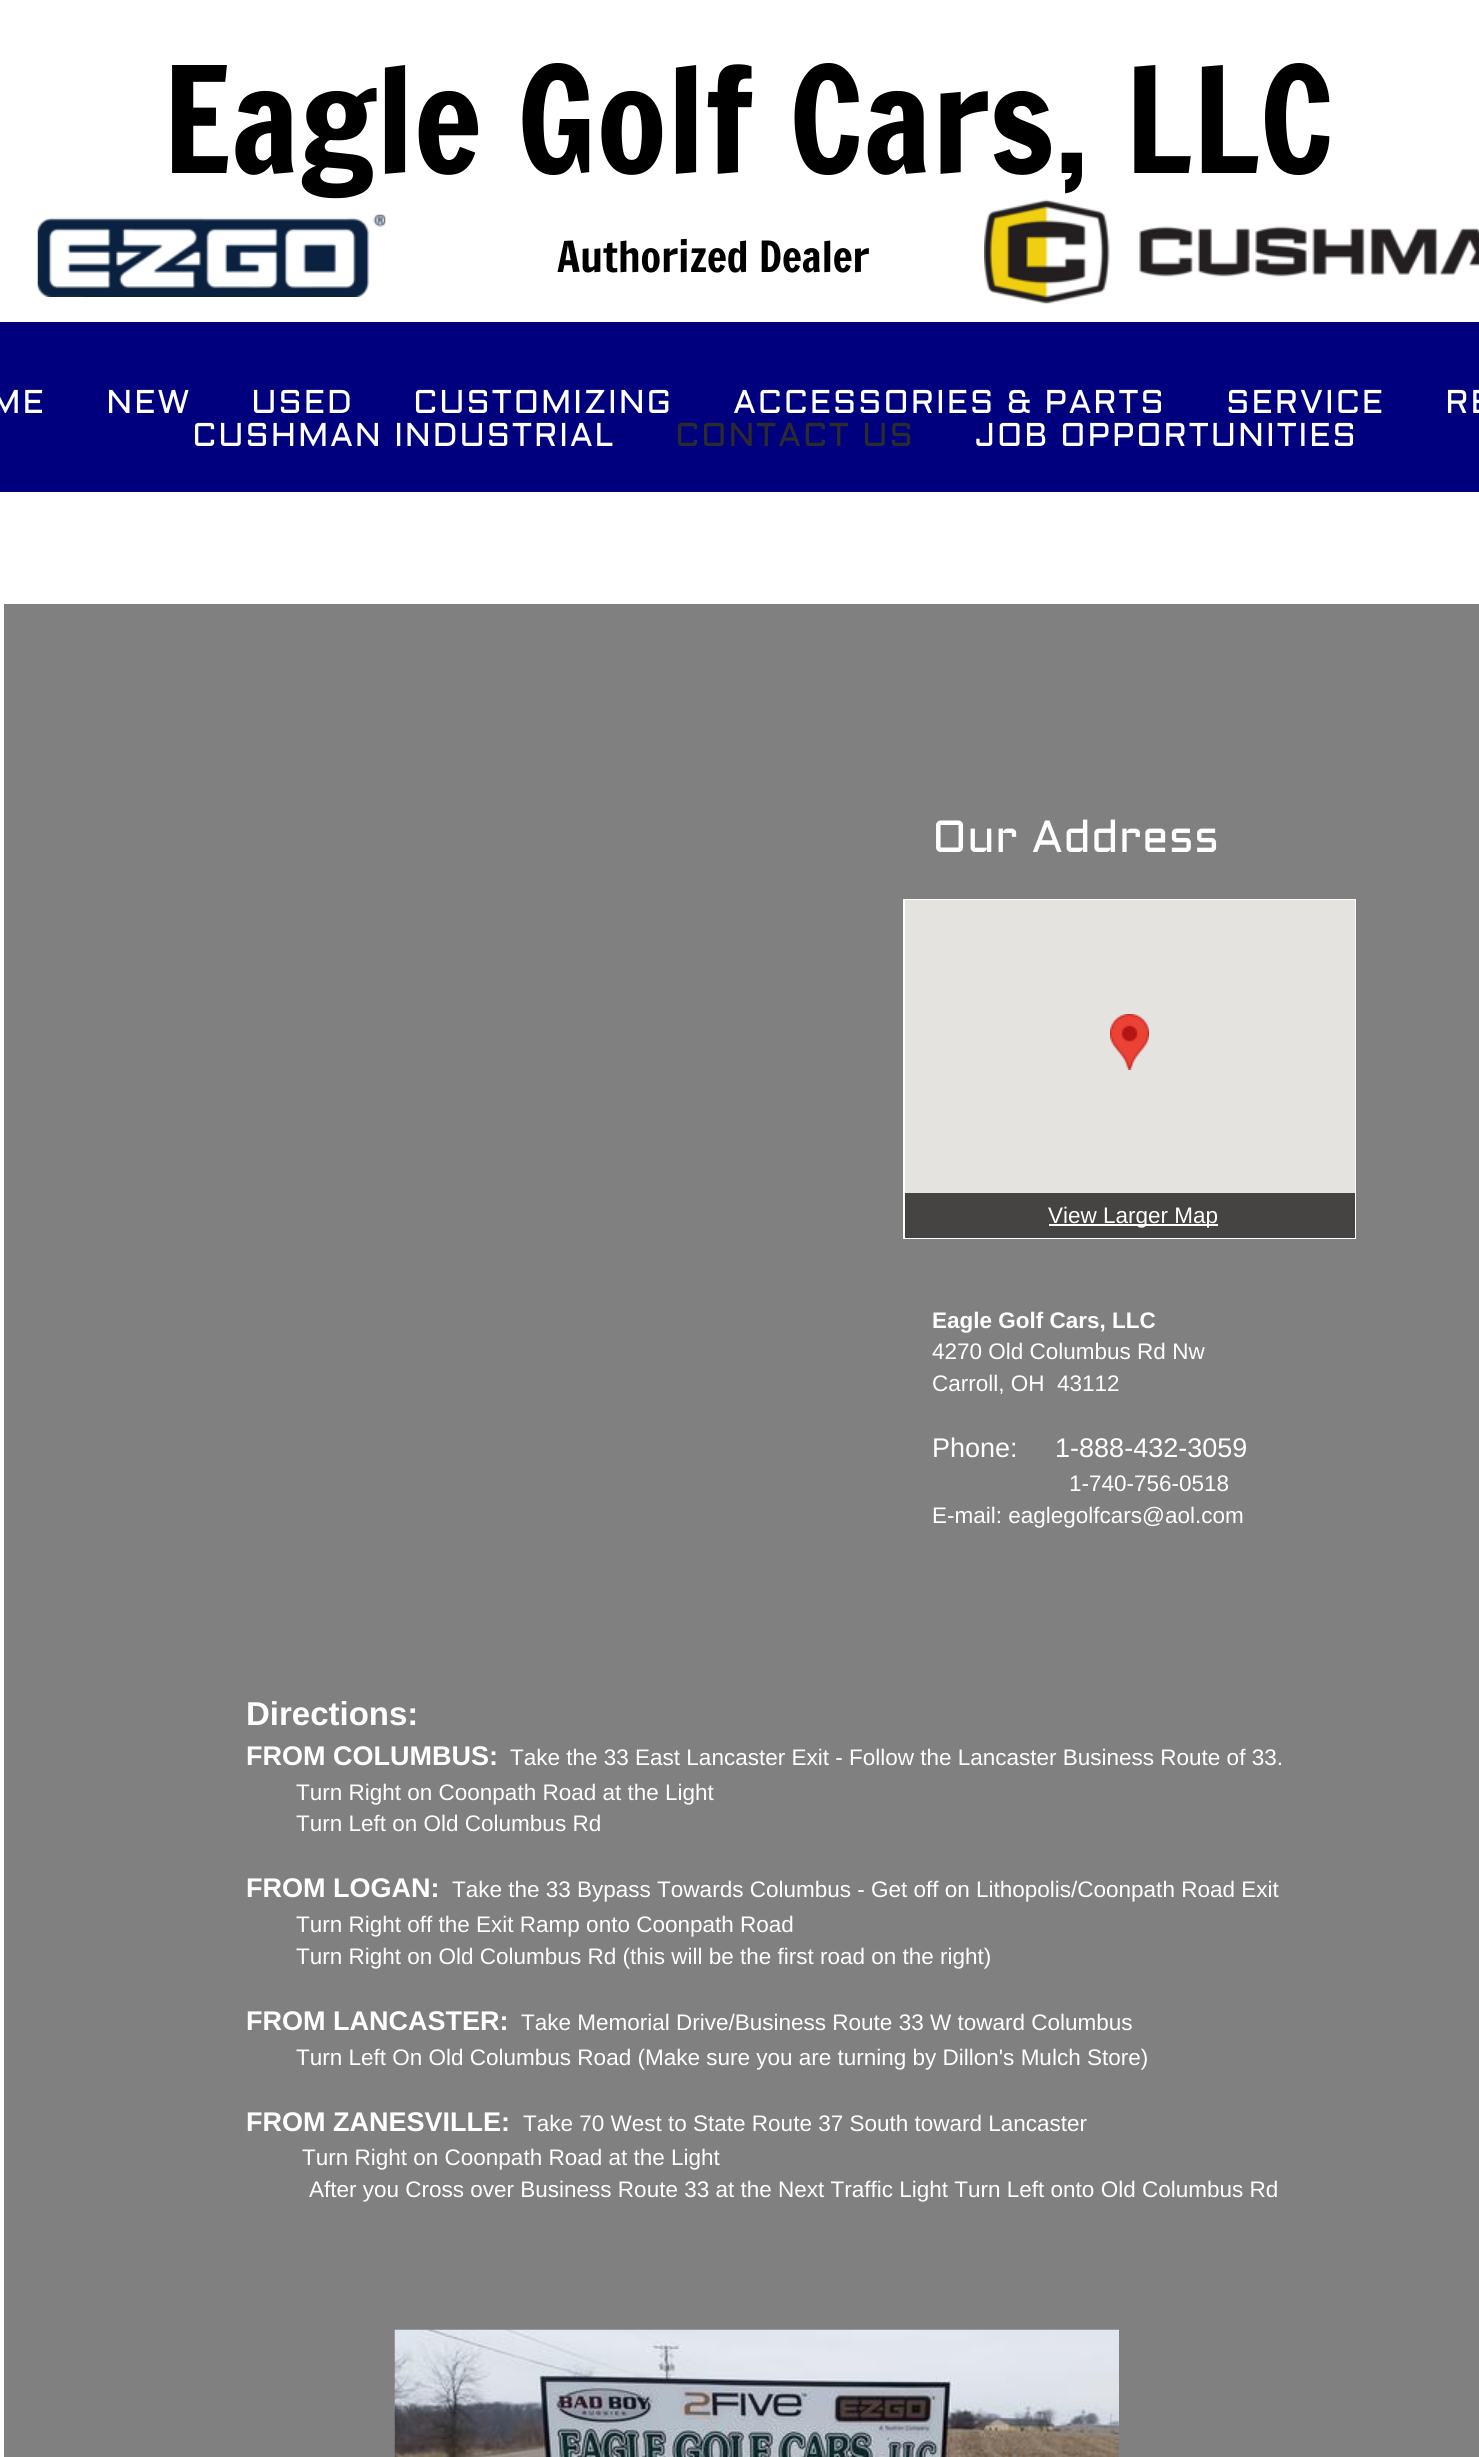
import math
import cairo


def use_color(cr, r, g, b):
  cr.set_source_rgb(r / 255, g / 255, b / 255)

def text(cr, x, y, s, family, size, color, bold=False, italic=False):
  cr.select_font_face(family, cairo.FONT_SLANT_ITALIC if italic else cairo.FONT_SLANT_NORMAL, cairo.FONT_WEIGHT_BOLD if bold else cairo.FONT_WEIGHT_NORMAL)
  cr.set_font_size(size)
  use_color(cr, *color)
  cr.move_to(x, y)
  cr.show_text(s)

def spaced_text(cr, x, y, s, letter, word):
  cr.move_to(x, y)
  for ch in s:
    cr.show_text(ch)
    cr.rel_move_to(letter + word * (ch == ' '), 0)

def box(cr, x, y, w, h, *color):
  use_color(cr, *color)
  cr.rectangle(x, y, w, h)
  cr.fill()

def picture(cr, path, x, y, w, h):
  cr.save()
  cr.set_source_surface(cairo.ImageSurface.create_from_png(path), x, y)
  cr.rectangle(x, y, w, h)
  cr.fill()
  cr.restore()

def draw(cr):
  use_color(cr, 255, 255, 255)
  cr.paint()
  picture(cr, "img_01.png", 37, 214, 349, 83)
  picture(cr, "img_02.png", 984, 199, 495, 106)
  box(cr, 0, 322, 1479, 170, 0, 0, 127)
  box(cr, 4, 604, 1475, 1853, 128, 128, 128)
  cr.rectangle(904, 900, 451, 338)
  use_color(cr, 255, 255, 255)
  cr.stroke()
  box(cr, 905, 900, 450, 293, 229, 227, 223)
  picture(cr, "img_03.png", 1110, 1014, 39, 56)
  box(cr, 905, 1193, 450, 45, 69, 68, 67)
  box(cr, 1049, 1224, 169, 2, 255, 255, 255)
  picture(cr, "img_04.png", 394, 2329, 725, 128)
  text(cr, 162, 173, "Eagle Golf Cars, LLC", "Francois One", 144, (0, 0, 0))
  text(cr, 557, 272, "Authorized Dealer", "Francois One", 42, (0, 0, 0))
  cr.select_font_face("Aldrich")
  cr.set_font_size(33)
  use_color(cr, 255, 255, 255)
  spaced_text(cr, -10, 413, "ME", 1.5, 0)
  spaced_text(cr, 106, 413, "NEW", 1.5, 0)
  spaced_text(cr, 251, 413, "USED", 1.5, 0)
  spaced_text(cr, 413, 413, "CUSTOMIZING", 1.5, 0)
  spaced_text(cr, 733, 413, "ACCESSORIES & PARTS", 1.5, 0)
  spaced_text(cr, 1226, 413, "SERVICE", 1.5, 0)
  spaced_text(cr, 1445, 413, "RE", 1.5, 0)
  spaced_text(cr, 192, 446, "CUSHMAN INDUSTRIAL", 1.5, 0)
  use_color(cr, 43, 43, 43)
  spaced_text(cr, 675, 446, "CONTACT US", 1.5, 0)
  use_color(cr, 255, 255, 255)
  spaced_text(cr, 974, 446, "JOB OPPORTUNITIES", 1.5, 0)
  text(cr, 932, 852, "Our Address", "Aldrich", 45, (255, 255, 255))
  text(cr, 1048, 1223, "View Larger Map", "Liberation Sans", 22.5, (255, 255, 255))
  text(cr, 932, 1328, "Eagle Golf Cars, LLC", "Liberation Sans", 22.5, (255, 255, 255), bold=True)
  text(cr, 932, 1359, "4270 Old Columbus Rd Nw", "Liberation Sans", 22.5, (255, 255, 255))
  text(cr, 932, 1391, "Carroll, OH  43112", "Liberation Sans", 22.5, (255, 255, 255))
  text(cr, 932, 1457, "Phone:     1-888-432-3059", "Liberation Sans", 27, (255, 255, 255))
  text(cr, 1069, 1491, "1-740-756-0518", "Liberation Sans", 22.5, (255, 255, 255))
  text(cr, 932, 1523, "E-mail: eaglegolfcars@aol.com", "Liberation Sans", 22.5, (255, 255, 255))
  text(cr, 246, 1725, "Directions:", "Liberation Sans", 33, (255, 255, 255), bold=True)
  text(cr, 246, 1765, "FROM COLUMBUS:", "Liberation Sans", 27, (255, 255, 255), bold=True)
  text(cr, 510, 1765, "Take the 33 East Lancaster Exit - Follow the Lancaster Business Route of 33.", "Liberation Sans", 22.5, (255, 255, 255))
  text(cr, 296, 1800, "Turn Right on Coonpath Road at the Light", "Liberation Sans", 22.5, (255, 255, 255))
  text(cr, 296, 1831, "Turn Left on Old Columbus Rd", "Liberation Sans", 22.5, (255, 255, 255))
  text(cr, 246, 1897, "FROM LOGAN:", "Liberation Sans", 27, (255, 255, 255), bold=True)
  text(cr, 452, 1897, "Take the 33 Bypass Towards Columbus - Get off on Lithopolis/Coonpath Road Exit", "Liberation Sans", 22.5, (255, 255, 255))
  text(cr, 296, 1932, "Turn Right off the Exit Ramp onto Coonpath Road", "Liberation Sans", 22.5, (255, 255, 255))
  text(cr, 296, 1964, "Turn Right on Old Columbus Rd (this will be the first road on the right)", "Liberation Sans", 22.5, (255, 255, 255))
  text(cr, 246, 2030, "FROM LANCASTER:", "Liberation Sans", 27, (255, 255, 255), bold=True)
  text(cr, 521, 2030, "Take Memorial Drive/Business Route 33 W toward Columbus", "Liberation Sans", 22.5, (255, 255, 255))
  text(cr, 296, 2065, "Turn Left On Old Columbus Road (Make sure you are turning by Dillon's Mulch Store)", "Liberation Sans", 22.5, (255, 255, 255))
  text(cr, 246, 2131, "FROM ZANESVILLE:", "Liberation Sans", 27, (255, 255, 255), bold=True)
  text(cr, 523, 2131, "Take 70 West to State Route 37 South toward Lancaster", "Liberation Sans", 22.5, (255, 255, 255))
  text(cr, 302, 2165, "Turn Right on Coonpath Road at the Light", "Liberation Sans", 22.5, (255, 255, 255))
  text(cr, 309, 2197, "After you Cross over Business Route 33 at the Next Traffic Light Turn Left onto Old Columbus Rd", "Liberation Sans", 22.5, (255, 255, 255))


surface = cairo.ImageSurface(cairo.FORMAT_RGB24, 1479, 2457)
cr = cairo.Context(surface)
options = cairo.FontOptions()
options.set_hint_metrics(cairo.HINT_METRICS_OFF)
options.set_hint_style(cairo.HINT_STYLE_NONE)
cr.set_font_options(options)
cr.set_miter_limit(4)
draw(cr)
surface.write_to_png("out.png")
